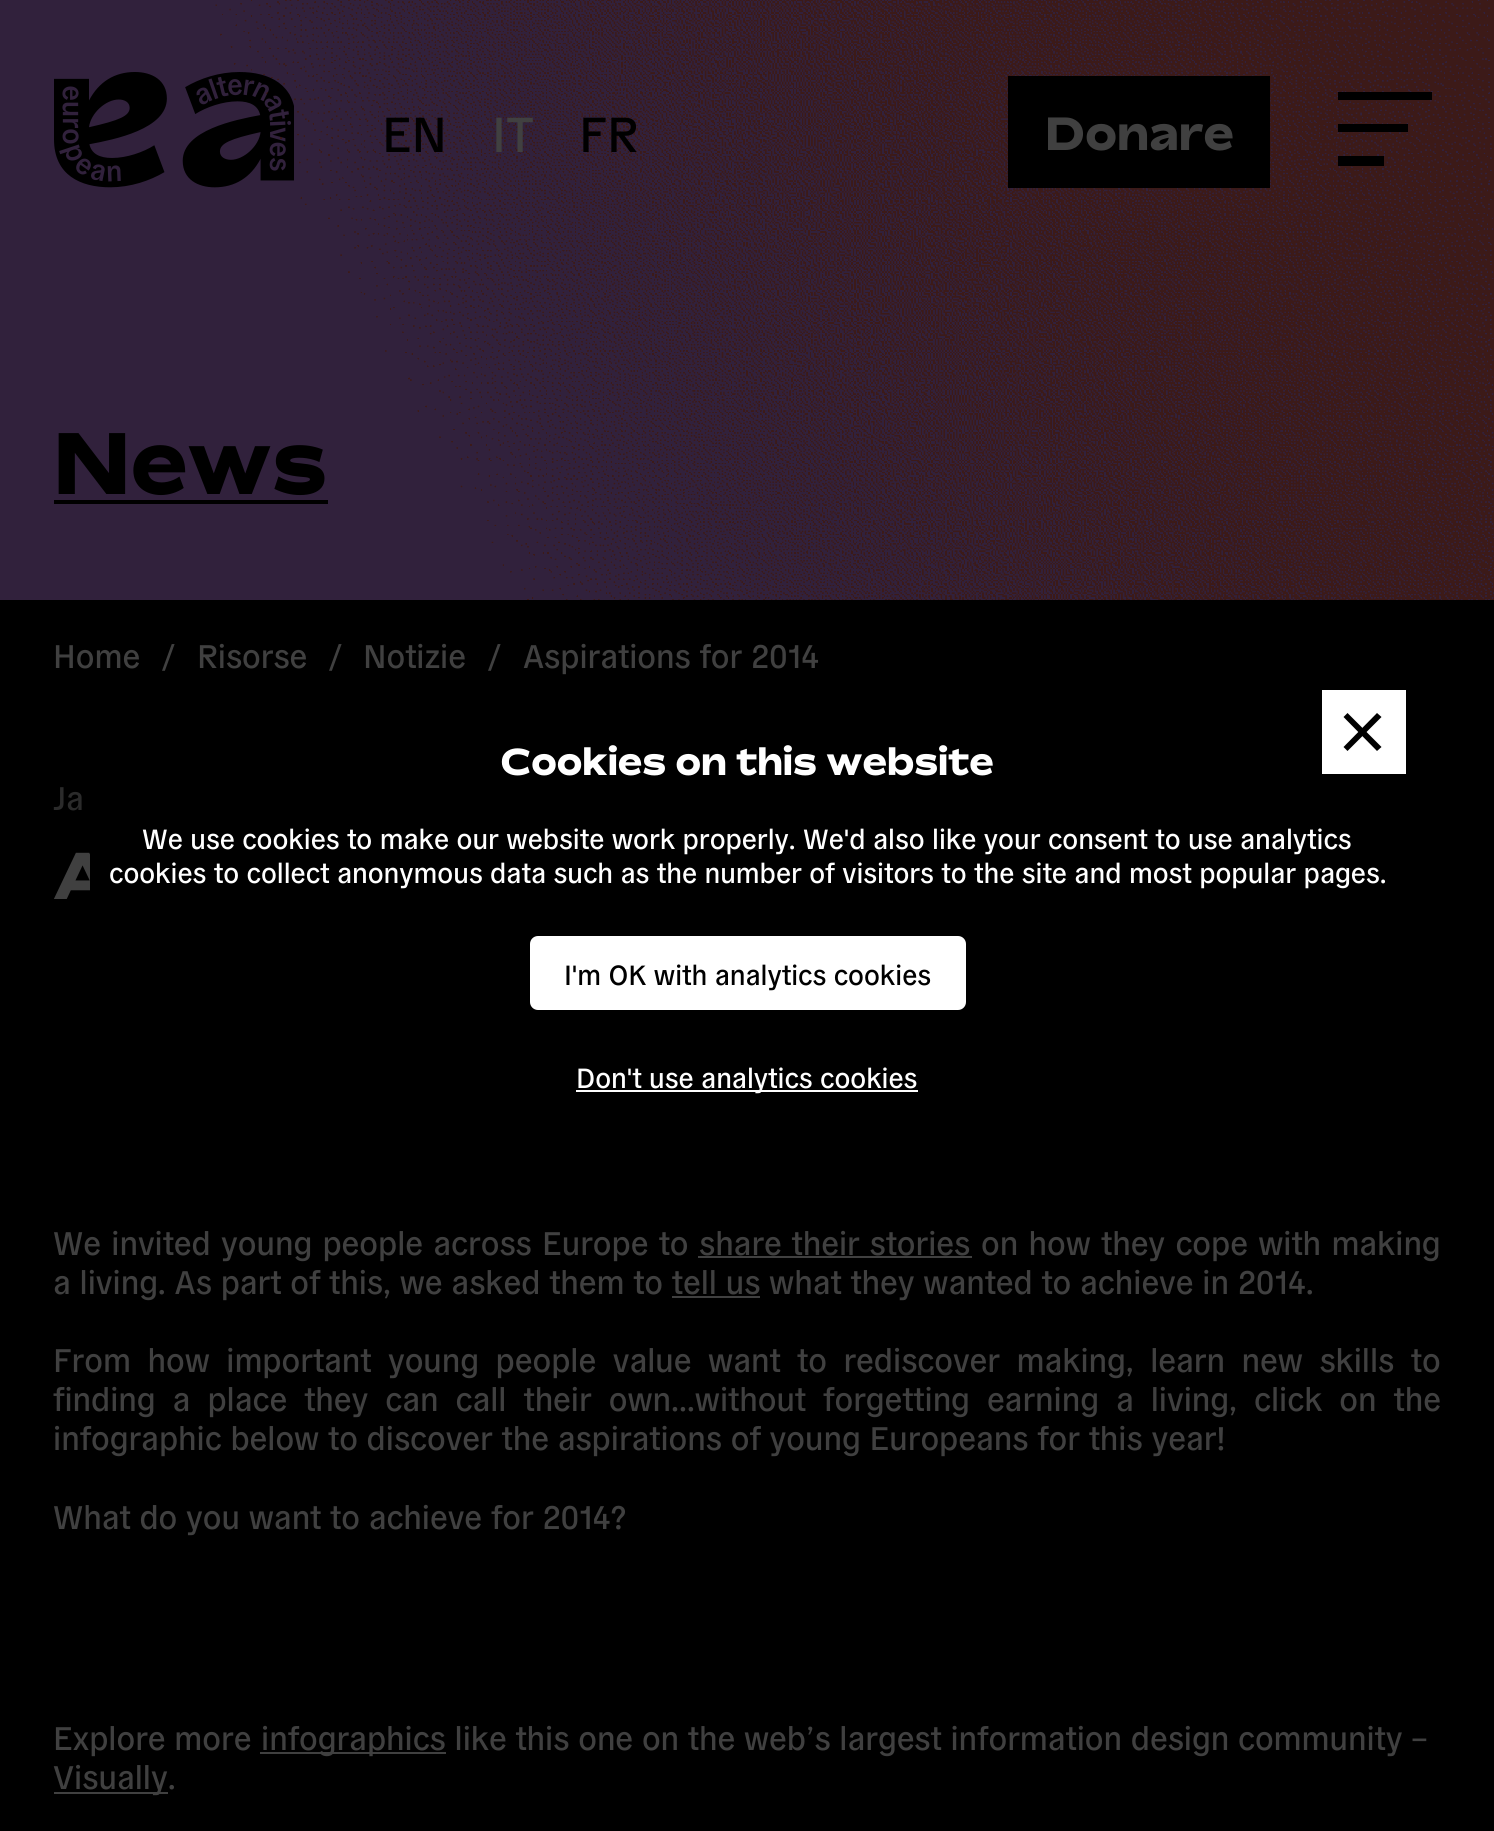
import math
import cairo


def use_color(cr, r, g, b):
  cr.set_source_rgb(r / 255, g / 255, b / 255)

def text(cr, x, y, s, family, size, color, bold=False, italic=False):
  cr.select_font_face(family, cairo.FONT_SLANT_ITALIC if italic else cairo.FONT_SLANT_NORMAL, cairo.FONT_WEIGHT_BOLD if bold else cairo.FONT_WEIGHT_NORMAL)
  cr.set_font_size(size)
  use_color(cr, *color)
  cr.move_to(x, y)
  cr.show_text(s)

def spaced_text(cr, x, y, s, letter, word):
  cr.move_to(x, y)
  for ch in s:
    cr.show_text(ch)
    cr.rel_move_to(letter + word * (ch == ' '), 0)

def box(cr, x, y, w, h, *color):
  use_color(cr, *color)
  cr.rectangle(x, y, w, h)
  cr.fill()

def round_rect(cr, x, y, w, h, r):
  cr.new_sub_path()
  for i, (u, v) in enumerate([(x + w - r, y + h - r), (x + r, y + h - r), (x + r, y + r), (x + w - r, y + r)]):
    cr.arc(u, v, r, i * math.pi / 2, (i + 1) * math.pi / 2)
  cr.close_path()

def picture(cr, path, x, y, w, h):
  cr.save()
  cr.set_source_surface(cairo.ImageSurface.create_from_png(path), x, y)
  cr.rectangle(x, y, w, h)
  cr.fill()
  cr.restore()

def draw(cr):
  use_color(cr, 0, 0, 0)
  cr.paint()
  box(cr, 0, 0, 1494, 600, 49, 33, 60)
  picture(cr, "img_02.png", 215, 0, 1279, 600)
  picture(cr, "img_01.png", 54, 72, 240, 116)
  box(cr, 1008, 76, 262, 112, 0, 0, 0)
  box(cr, 1338, 124, 70, 8, 0, 0, 0)
  box(cr, 1338, 92, 94, 8, 0, 0, 0)
  box(cr, 1338, 156, 46, 10, 0, 0, 0)
  box(cr, 54, 500, 274, 4, 0, 0, 0)
  box(cr, 698, 1256, 274, 2, 64, 64, 64)
  box(cr, 672, 1296, 88, 2, 64, 64, 64)
  box(cr, 260, 1752, 186, 2, 64, 64, 64)
  box(cr, 54, 1792, 114, 2, 64, 64, 64)
  box(cr, 1322, 690, 84, 84, 255, 255, 255)
  use_color(cr, 0, 0, 0)
  cr.new_path()
  cr.move_to(1377, 713)
  cr.line_to(1381.5, 717)
  cr.line_to(1347.5, 751)
  cr.line_to(1343.5, 747)
  cr.close_path()
  cr.fill()
  cr.new_path()
  cr.move_to(1343.5, 717)
  cr.line_to(1347.5, 713)
  cr.line_to(1381.5, 747)
  cr.line_to(1377, 751)
  cr.close_path()
  cr.fill()
  use_color(cr, 255, 255, 255)
  round_rect(cr, 531, 937, 434, 72, 7)
  cr.fill_preserve()
  cr.stroke()
  box(cr, 576, 1090, 342, 2, 255, 255, 255)
  text(cr, 382, 152, "EN", "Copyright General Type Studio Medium", 49, (0, 0, 0))
  text(cr, 492, 152, "IT", "Copyright General Type Studio Medium", 49, (64, 64, 64))
  text(cr, 579, 152, "FR", "Copyright General Type Studio Medium", 49, (0, 0, 0))
  text(cr, 1045, 150, "Donare", "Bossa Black", 46.5, (64, 64, 64))
  text(cr, 53, 494, "News", "Bossa Black", 87, (0, 0, 0))
  text(cr, 53, 668, "Home", "Copyright General Type Studio Medium", 32.6, (64, 64, 64))
  text(cr, 162, 668, "/", "Copyright General Type Studio Medium", 32.6, (64, 64, 64))
  text(cr, 197, 668, "Risorse", "Copyright General Type Studio Medium", 32.6, (64, 64, 64))
  text(cr, 329, 668, "/", "Copyright General Type Studio Medium", 32.6, (64, 64, 64))
  text(cr, 363, 668, "Notizie", "Copyright General Type Studio Medium", 32.6, (64, 64, 64))
  text(cr, 488, 668, "/", "Copyright General Type Studio Medium", 32.6, (64, 64, 64))
  text(cr, 523, 668, "Aspirations for 2014", "Copyright General Type Studio Medium", 32.6, (64, 64, 64))
  text(cr, 53, 810, "Ja", "Copyright General Type Studio Medium", 32.6, (43, 43, 43))
  text(cr, 53, 899, "A", "Bossa Black", 66, (64, 64, 64))
  cr.select_font_face("Copyright General Type Studio Medium")
  cr.set_font_size(32.6)
  spaced_text(cr, 53, 1255, "We invited young people across Europe to", 0, 1.5)
  spaced_text(cr, 699, 1255, "share their stories", 0, 1)
  spaced_text(cr, 981, 1255, "on how they cope with making", 0, 1.5)
  text(cr, 53, 1294, "a living. As part of this, we asked them to tell us what they wanted to achieve in 2014.", "Copyright General Type Studio Medium", 32.6, (64, 64, 64))
  spaced_text(cr, 53, 1372, "From how important young people value want to rediscover making, learn new skills to", 0, 7.75)
  spaced_text(cr, 53, 1411, "finding a place they can call their own…without forgetting earning a living, click on the", 0, 8.25)
  text(cr, 53, 1450, "infographic below to discover the aspirations of young Europeans for this year!", "Copyright General Type Studio Medium", 32.6, (64, 64, 64))
  text(cr, 53, 1529, "What do you want to achieve for 2014?", "Copyright General Type Studio Medium", 32.6, (64, 64, 64))
  text(cr, 53, 1750, "Explore more", "Copyright General Type Studio Medium", 32.6, (64, 64, 64))
  text(cr, 261, 1750, "infographics like this one on the web’s largest information design community –", "Copyright General Type Studio Medium", 32.6, (64, 64, 64))
  text(cr, 53, 1789, "Visually.", "Copyright General Type Studio Medium", 32.6, (64, 64, 64))
  box(cr, 90, 854, 22, 45, 0, 0, 0)
  text(cr, 500, 775, "Cookies on this website", "Bossa Black", 37.5, (255, 255, 255))
  text(cr, 142, 849, "We use cookies to make our website work properly. We'd also like your consent to use analytics", "Copyright General Type Studio Medium", 27.7, (255, 255, 255))
  text(cr, 109, 883, "cookies to collect anonymous data such as the number of visitors to the site and most popular pages.", "Copyright General Type Studio Medium", 27.7, (255, 255, 255))
  text(cr, 564, 985, "I'm OK with analytics cookies", "Copyright General Type Studio Medium", 27.7, (0, 0, 0))
  text(cr, 576, 1088, "Don't use analytics cookies", "Copyright General Type Studio Medium", 27.7, (255, 255, 255))


surface = cairo.ImageSurface(cairo.FORMAT_RGB24, 1494, 1831)
cr = cairo.Context(surface)
options = cairo.FontOptions()
options.set_hint_metrics(cairo.HINT_METRICS_OFF)
options.set_hint_style(cairo.HINT_STYLE_NONE)
cr.set_font_options(options)
cr.set_miter_limit(4)
draw(cr)
surface.write_to_png("out.png")
